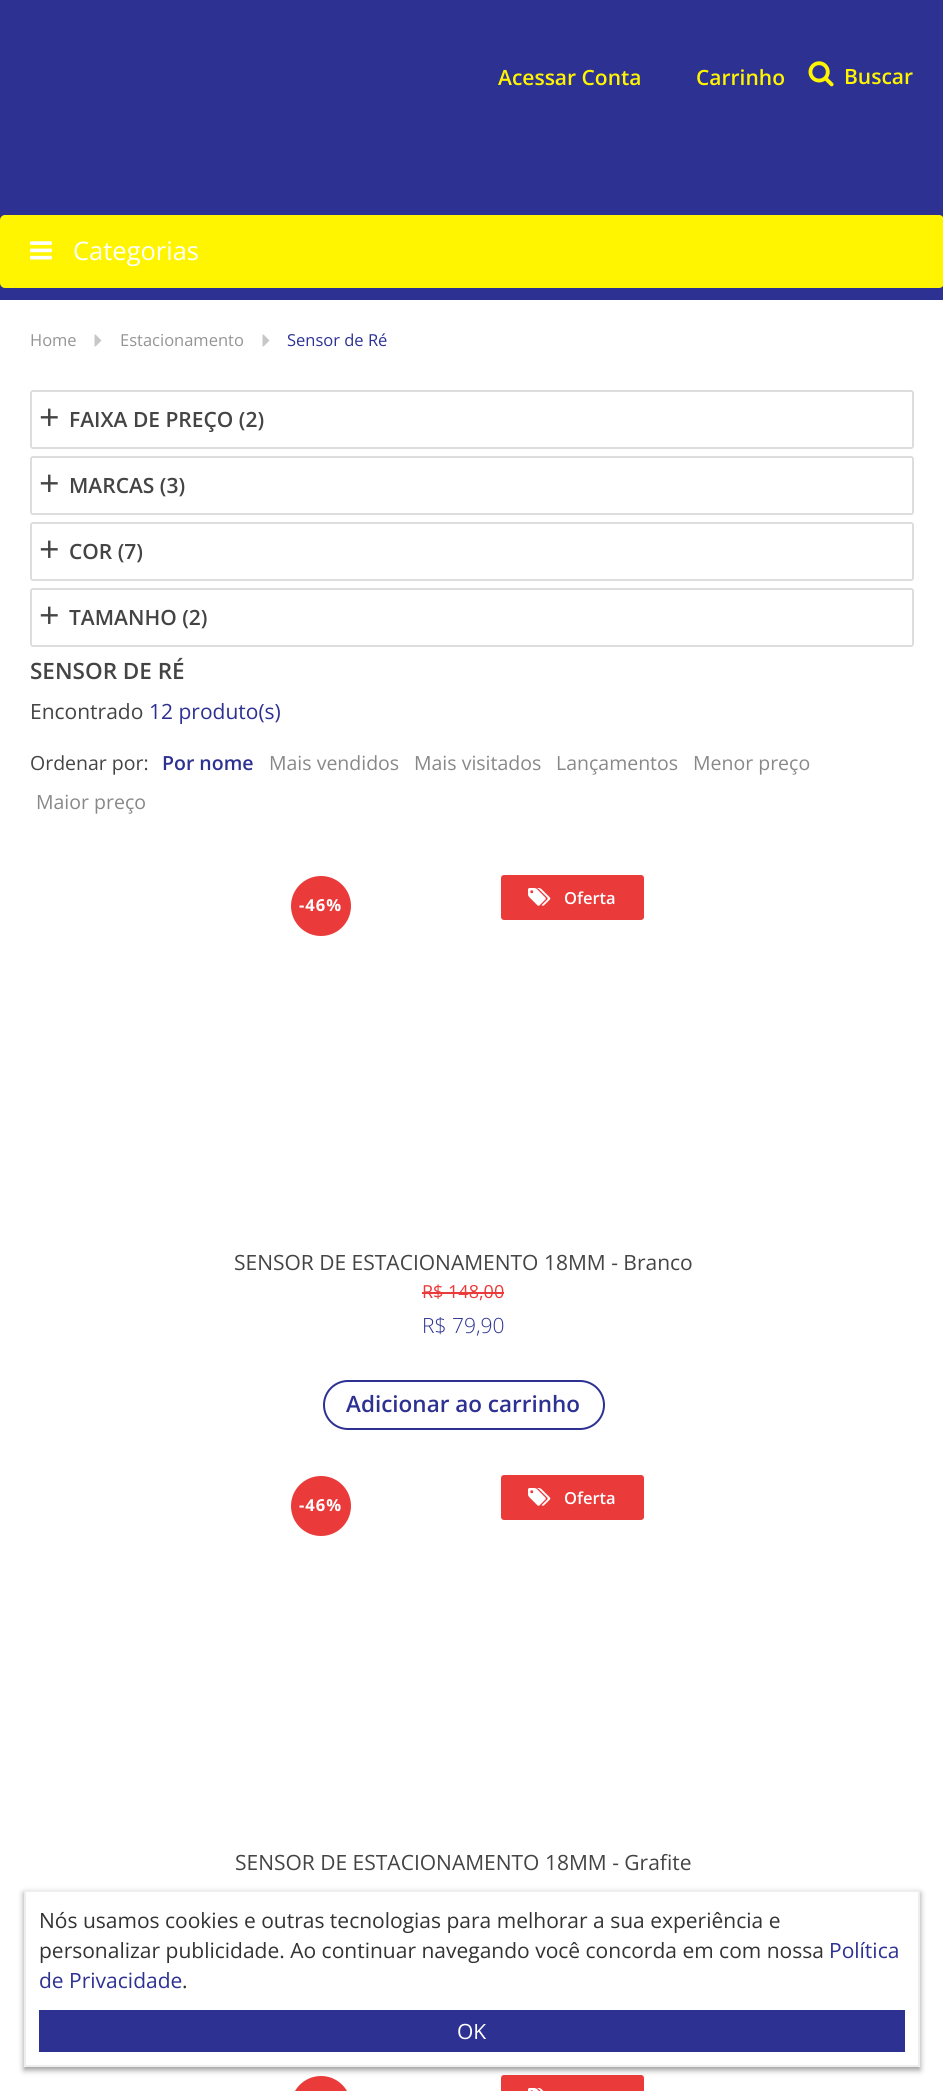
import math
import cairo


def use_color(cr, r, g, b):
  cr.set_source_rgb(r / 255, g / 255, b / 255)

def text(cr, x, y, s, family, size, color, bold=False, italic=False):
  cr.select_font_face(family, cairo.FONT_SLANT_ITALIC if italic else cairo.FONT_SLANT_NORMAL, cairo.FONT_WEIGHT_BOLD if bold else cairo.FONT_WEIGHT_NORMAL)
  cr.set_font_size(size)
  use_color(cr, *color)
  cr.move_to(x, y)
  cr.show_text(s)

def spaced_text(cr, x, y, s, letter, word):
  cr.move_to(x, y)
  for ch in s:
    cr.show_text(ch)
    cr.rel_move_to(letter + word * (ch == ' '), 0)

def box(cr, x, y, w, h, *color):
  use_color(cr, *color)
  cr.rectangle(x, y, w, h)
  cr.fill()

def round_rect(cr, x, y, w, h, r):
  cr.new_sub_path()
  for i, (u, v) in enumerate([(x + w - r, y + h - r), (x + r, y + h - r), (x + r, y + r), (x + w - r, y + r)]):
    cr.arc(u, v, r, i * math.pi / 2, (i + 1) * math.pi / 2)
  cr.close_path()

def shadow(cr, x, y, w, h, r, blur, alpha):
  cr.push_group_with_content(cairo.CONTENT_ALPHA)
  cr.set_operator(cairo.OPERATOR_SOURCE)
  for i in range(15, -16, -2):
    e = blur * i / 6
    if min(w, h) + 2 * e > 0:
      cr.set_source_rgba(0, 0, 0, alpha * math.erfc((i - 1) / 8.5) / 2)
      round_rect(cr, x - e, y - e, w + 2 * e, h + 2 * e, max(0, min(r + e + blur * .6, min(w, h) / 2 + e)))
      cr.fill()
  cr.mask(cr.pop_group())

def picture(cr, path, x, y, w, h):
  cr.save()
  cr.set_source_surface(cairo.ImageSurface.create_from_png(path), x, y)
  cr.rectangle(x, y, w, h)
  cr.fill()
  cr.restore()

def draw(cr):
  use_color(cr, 255, 255, 255)
  cr.paint()
  box(cr, 0, 0, 943, 300, 45, 49, 146)
  picture(cr, "img_01.png", 808, 61, 26, 26)
  use_color(cr, 255, 245, 0)
  round_rect(cr, 0, 215, 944, 73, 5)
  cr.fill()
  picture(cr, "img_02.png", 30, 241, 22, 19)
  picture(cr, "img_03.png", 94, 334, 8, 13)
  picture(cr, "img_03.png", 262, 334, 8, 13)
  round_rect(cr, 31, 391, 882, 57, 2)
  use_color(cr, 221, 221, 221)
  cr.stroke()
  box(cr, 32, 392, 880, 55, 255, 255, 255)
  round_rect(cr, 31, 457, 882, 57, 2)
  use_color(cr, 221, 221, 221)
  cr.stroke()
  box(cr, 32, 458, 880, 55, 255, 255, 255)
  round_rect(cr, 31, 523, 882, 57, 2)
  use_color(cr, 221, 221, 221)
  cr.stroke()
  box(cr, 32, 524, 880, 55, 255, 255, 255)
  round_rect(cr, 31, 589, 882, 57, 2)
  use_color(cr, 221, 221, 221)
  cr.stroke()
  box(cr, 32, 590, 880, 55, 255, 255, 255)
  use_color(cr, 235, 58, 58)
  cr.arc(321, 906, 30, 0, 2 * math.pi)
  cr.fill()
  round_rect(cr, 501, 875, 143, 45, 3)
  cr.fill()
  picture(cr, "img_04.png", 528, 888, 23, 18)
  box(cr, 422, 1292, 82, 2, 235, 58, 58)
  round_rect(cr, 324, 1381, 280, 48, 24)
  use_color(cr, 45, 49, 146)
  cr.stroke()
  use_color(cr, 235, 58, 58)
  cr.arc(321, 1506, 30, 0, 2 * math.pi)
  cr.fill()
  round_rect(cr, 501, 1475, 143, 45, 3)
  cr.fill()
  picture(cr, "img_04.png", 528, 1488, 23, 18)
  round_rect(cr, 291, 2076, 60, 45, 30)
  cr.fill()
  round_rect(cr, 501, 2075, 143, 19, 3)
  cr.fill()
  picture(cr, "img_05.png", 528, 2088, 16, 3)
  use_color(cr, 0, 0, 0)
  shadow(cr, 24, 1893, 896, 177, 0, 3, 0.4)
  use_color(cr, 255, 255, 255)
  cr.rectangle(25, 1891, 894, 175)
  cr.fill_preserve()
  use_color(cr, 238, 238, 238)
  cr.stroke()
  box(cr, 39, 2010, 866, 42, 45, 49, 146)
  text(cr, 498, 85, "Acessar Conta", "Open Sans SemiBold", 21, (255, 245, 0))
  text(cr, 696, 85, "Carrinho", "Open Sans SemiBold", 21, (255, 245, 0))
  text(cr, 844, 84, "Buscar", "Open Sans SemiBold", 21, (255, 245, 0))
  text(cr, 73, 260, "Categorias", "Open Sans", 25.5, (255, 255, 255))
  text(cr, 30, 346, "Home", "Open Sans", 16.5, (148, 148, 148))
  text(cr, 120, 346, "Estacionamento", "Open Sans", 16.5, (148, 148, 148))
  text(cr, 287, 346, "Sensor de Ré", "Open Sans", 16.5, (45, 49, 146))
  text(cr, 39, 430, "+", "Open Sans", 36, (68, 68, 68))
  text(cr, 69, 427, "FAIXA DE PREÇO (2)", "Open Sans SemiBold", 21, (68, 68, 68))
  text(cr, 39, 496, "+", "Open Sans", 36, (68, 68, 68))
  text(cr, 69, 493, "MARCAS (3)", "Open Sans SemiBold", 21, (68, 68, 68))
  text(cr, 39, 562, "+", "Open Sans", 36, (68, 68, 68))
  text(cr, 69, 559, "COR (7)", "Open Sans SemiBold", 21, (68, 68, 68))
  text(cr, 39, 628, "+", "Open Sans", 36, (68, 68, 68))
  text(cr, 69, 625, "TAMANHO (2)", "Open Sans SemiBold", 21, (68, 68, 68))
  text(cr, 30, 679, "SENSOR DE RÉ", "Open Sans SemiBold", 22.5, (68, 68, 68))
  text(cr, 30, 719, "Encontrado", "Open Sans", 21, (68, 68, 68))
  text(cr, 149, 719, "12 produto(s)", "Open Sans", 21, (45, 49, 146))
  text(cr, 30, 770, "Ordenar por:", "Open Sans", 19.5, (68, 68, 68))
  text(cr, 162, 770, "Por nome", "Open Sans SemiBold", 19.5, (45, 49, 146))
  text(cr, 269, 770, "Mais vendidos", "Open Sans", 19.5, (136, 136, 136))
  text(cr, 414, 770, "Mais visitados", "Open Sans", 19.5, (136, 136, 136))
  text(cr, 556, 770, "Lançamentos", "Open Sans", 19.5, (136, 136, 136))
  text(cr, 693, 770, "Menor preço", "Open Sans", 19.5, (136, 136, 136))
  text(cr, 36, 809, "Maior preço", "Open Sans", 19.5, (136, 136, 136))
  cr.select_font_face("Open Sans", cairo.FONT_SLANT_NORMAL, cairo.FONT_WEIGHT_BOLD)
  cr.set_font_size(16.5)
  use_color(cr, 255, 255, 255)
  spaced_text(cr, 299, 911, "-46%", 1, 0)
  text(cr, 564, 904, "Oferta", "Open Sans SemiBold", 16.5, (255, 255, 255))
  text(cr, 234, 1270, "SENSOR DE ESTACIONAMENTO 18MM - Branco", "Open Sans", 21, (68, 68, 68))
  text(cr, 422, 1298, "R$ 148,00", "Open Sans", 18, (235, 58, 58))
  text(cr, 422, 1333, "R$ 79,90", "Open Sans Light", 21, (45, 49, 146))
  text(cr, 346, 1412, "Adicionar ao carrinho", "Open Sans SemiBold", 22.5, (45, 49, 146))
  cr.select_font_face("Open Sans", cairo.FONT_SLANT_NORMAL, cairo.FONT_WEIGHT_BOLD)
  cr.set_font_size(16.5)
  use_color(cr, 255, 255, 255)
  spaced_text(cr, 299, 1511, "-46%", 1, 0)
  text(cr, 564, 1504, "Oferta", "Open Sans SemiBold", 16.5, (255, 255, 255))
  text(cr, 235, 1870, "SENSOR DE ESTACIONAMENTO 18MM - Grafite", "Open Sans", 21, (68, 68, 68))
  text(cr, 39, 1928, "Nós usamos cookies e outras tecnologias para melhorar a sua experiência e", "Open Sans", 21, (51, 51, 51))
  text(cr, 39, 1958, "personalizar publicidade. Ao continuar navegando você concorda em com nossa", "Open Sans", 21, (51, 51, 51))
  text(cr, 829, 1958, "Política", "Open Sans", 21, (45, 49, 146))
  text(cr, 39, 1988, "de Privacidade", "Open Sans", 21, (45, 49, 146))
  text(cr, 182, 1988, ".", "Open Sans", 21, (51, 51, 51))
  text(cr, 457, 2039, "OK", "Open Sans", 21, (255, 255, 255))


surface = cairo.ImageSurface(cairo.FORMAT_RGB24, 943, 2091)
cr = cairo.Context(surface)
options = cairo.FontOptions()
options.set_hint_metrics(cairo.HINT_METRICS_OFF)
options.set_hint_style(cairo.HINT_STYLE_NONE)
cr.set_font_options(options)
cr.set_miter_limit(4)
draw(cr)
surface.write_to_png("out.png")
